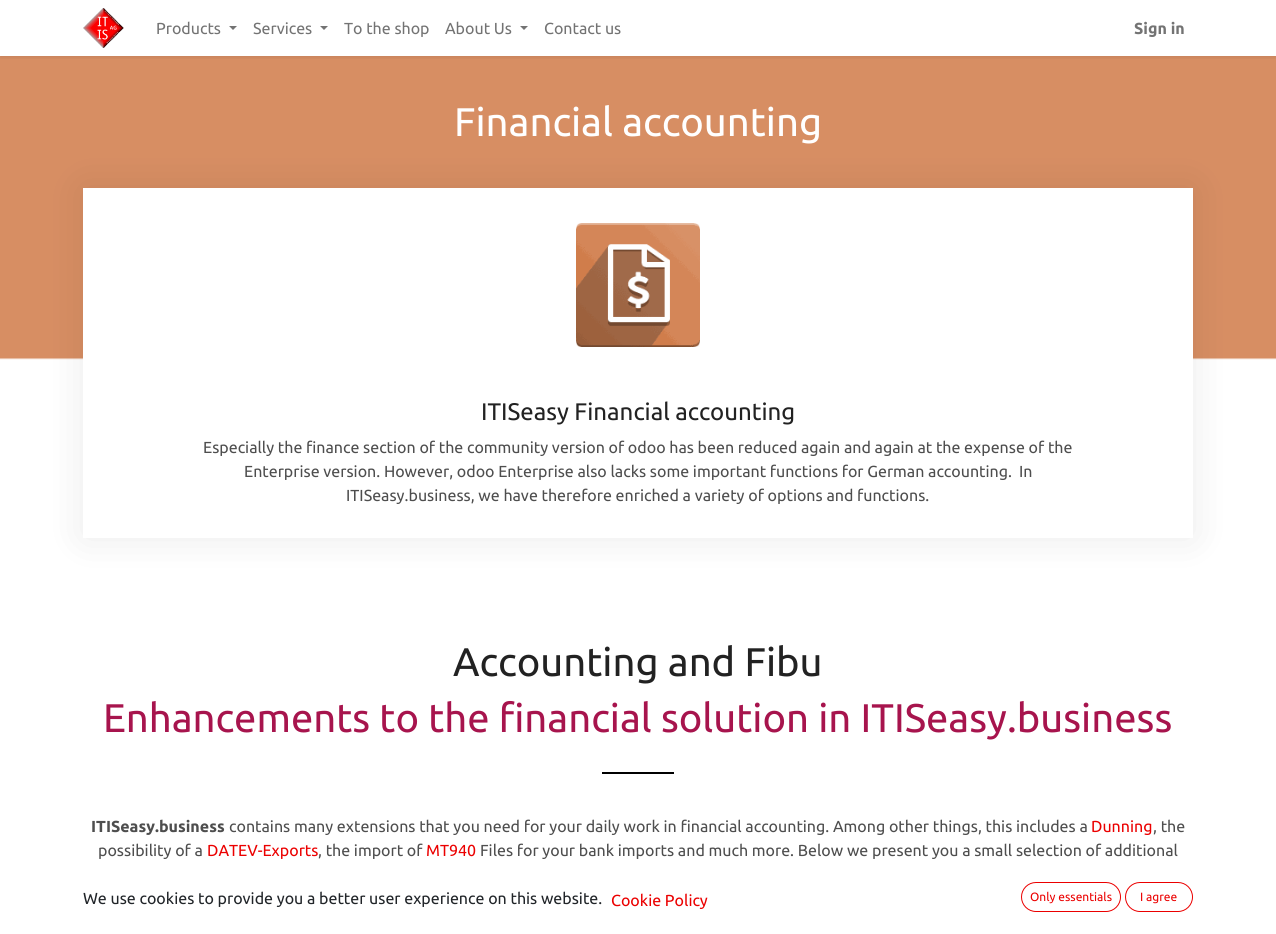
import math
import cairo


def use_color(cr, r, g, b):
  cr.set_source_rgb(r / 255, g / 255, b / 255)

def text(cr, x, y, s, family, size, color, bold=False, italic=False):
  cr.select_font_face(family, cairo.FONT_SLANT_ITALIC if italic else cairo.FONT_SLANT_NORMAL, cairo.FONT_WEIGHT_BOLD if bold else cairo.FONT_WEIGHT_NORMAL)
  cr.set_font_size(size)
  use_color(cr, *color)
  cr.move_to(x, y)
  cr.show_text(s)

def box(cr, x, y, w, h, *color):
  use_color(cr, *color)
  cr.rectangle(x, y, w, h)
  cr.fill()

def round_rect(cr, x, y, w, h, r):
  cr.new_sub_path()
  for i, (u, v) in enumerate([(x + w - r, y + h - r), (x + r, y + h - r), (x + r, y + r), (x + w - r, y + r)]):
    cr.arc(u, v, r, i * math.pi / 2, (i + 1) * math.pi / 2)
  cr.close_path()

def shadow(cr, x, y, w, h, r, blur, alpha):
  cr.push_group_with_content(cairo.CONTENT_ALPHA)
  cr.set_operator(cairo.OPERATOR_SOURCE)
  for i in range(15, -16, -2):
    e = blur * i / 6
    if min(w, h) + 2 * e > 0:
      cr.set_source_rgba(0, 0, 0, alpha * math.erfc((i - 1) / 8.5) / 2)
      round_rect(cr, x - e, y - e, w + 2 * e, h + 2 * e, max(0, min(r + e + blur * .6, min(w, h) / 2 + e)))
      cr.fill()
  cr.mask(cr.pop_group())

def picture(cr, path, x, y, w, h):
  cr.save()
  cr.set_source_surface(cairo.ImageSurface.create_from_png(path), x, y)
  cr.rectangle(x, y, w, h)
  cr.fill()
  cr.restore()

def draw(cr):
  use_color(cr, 255, 255, 255)
  cr.paint()
  picture(cr, "img_02.png", 0, 56, 1276, 578)
  cr.save()
  cr.rectangle(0, 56, 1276, 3)
  cr.clip()
  use_color(cr, 0, 0, 0)
  shadow(cr, 0, 2, 1276, 56, 0, 2, 0.07)
  cr.restore()
  picture(cr, "img_01.png", 83, 8, 41, 40)
  use_color(cr, 115, 115, 115)
  cr.new_path()
  cr.move_to(229, 26)
  cr.line_to(237, 26)
  cr.line_to(233, 30)
  cr.close_path()
  cr.fill()
  cr.new_path()
  cr.move_to(320, 26)
  cr.line_to(328, 26)
  cr.line_to(324, 30)
  cr.close_path()
  cr.fill()
  cr.new_path()
  cr.move_to(520, 26)
  cr.line_to(528, 26)
  cr.line_to(524, 30)
  cr.close_path()
  cr.fill()
  use_color(cr, 0, 0, 0)
  shadow(cr, 83, 188, 1110, 350, 0, 20, 0.08)
  box(cr, 83, 188, 1110, 350, 255, 255, 255)
  picture(cr, "img_03.png", 576, 223, 124, 124)
  box(cr, 602, 772, 72, 2, 0, 0, 0)
  round_rect(cr, 1021.5, 882.5, 99, 29, 14.5)
  use_color(cr, 235, 0, 0)
  cr.set_line_width(1)
  cr.stroke()
  round_rect(cr, 1125.5, 882.5, 67, 29, 14.5)
  cr.stroke()
  text(cr, 156, 34, "Products", "Ubuntu", 16, (115, 115, 115))
  text(cr, 253, 34, "Services", "Ubuntu", 16, (115, 115, 115))
  text(cr, 344, 34, "To the shop", "Ubuntu", 16, (115, 115, 115))
  text(cr, 445, 34, "About Us", "Ubuntu", 16, (115, 115, 115))
  text(cr, 544, 34, "Contact us", "Ubuntu", 16, (115, 115, 115))
  text(cr, 1134, 34, "Sign in", "Ubuntu", 16, (115, 115, 115), bold=True)
  text(cr, 454, 136, "Financial accounting", "Ubuntu", 40, (255, 255, 255))
  text(cr, 481, 420, "ITISeasy Financial accounting", "Ubuntu", 24, (34, 34, 34))
  text(cr, 203, 453, "Especially the finance section of the community version of odoo has been reduced again and again at the expense of the", "Ubuntu", 16, (78, 78, 78))
  text(cr, 244, 477, "Enterprise version. However, odoo Enterprise also lacks some important functions for German accounting.", "Ubuntu", 16, (78, 78, 78))
  text(cr, 1019, 477, "In", "Ubuntu", 16, (78, 78, 78))
  text(cr, 346, 501, "ITISeasy.business, we have therefore enriched a variety of options and functions.", "Ubuntu", 16, (78, 78, 78))
  text(cr, 453, 676, "Accounting and Fibu", "Ubuntu", 40, (34, 34, 34))
  text(cr, 103, 732, "Enhancements to the financial solution in ITISeasy.business", "Ubuntu", 40, (167, 20, 77))
  text(cr, 91, 832, "ITISeasy.business", "Ubuntu", 16, (78, 78, 78), bold=True)
  text(cr, 229, 832, "contains many extensions that you need for your daily work in financial accounting. Among other things, this includes a", "Ubuntu", 16, (78, 78, 78))
  text(cr, 1091, 832, "Dunning", "Ubuntu", 16, (235, 0, 0))
  text(cr, 1153, 832, ", the", "Ubuntu", 16, (78, 78, 78))
  text(cr, 98, 856, "possibility of a", "Ubuntu", 16, (78, 78, 78))
  text(cr, 207, 856, "DATEV-Exports", "Ubuntu", 16, (235, 0, 0))
  text(cr, 318, 856, ", the import of", "Ubuntu", 16, (78, 78, 78))
  text(cr, 426, 856, "MT940", "Ubuntu", 16, (235, 0, 0))
  text(cr, 480, 856, "Files for your bank imports and much more. Below we present you a small selection of additional", "Ubuntu", 16, (78, 78, 78))
  text(cr, 83, 904, "We use cookies to provide you a better user experience on this website.", "Ubuntu", 16, (33, 37, 41))
  text(cr, 611, 906, "Cookie Policy", "Ubuntu", 16, (235, 0, 0))
  text(cr, 1030, 901, "Only essentials", "Ubuntu", 12, (235, 0, 0))
  text(cr, 1140, 901, "I agree", "Ubuntu", 12, (235, 0, 0))


surface = cairo.ImageSurface(cairo.FORMAT_RGB24, 1276, 934)
cr = cairo.Context(surface)
options = cairo.FontOptions()
options.set_hint_metrics(cairo.HINT_METRICS_OFF)
options.set_hint_style(cairo.HINT_STYLE_NONE)
cr.set_font_options(options)
cr.set_miter_limit(4)
draw(cr)
surface.write_to_png("out.png")
